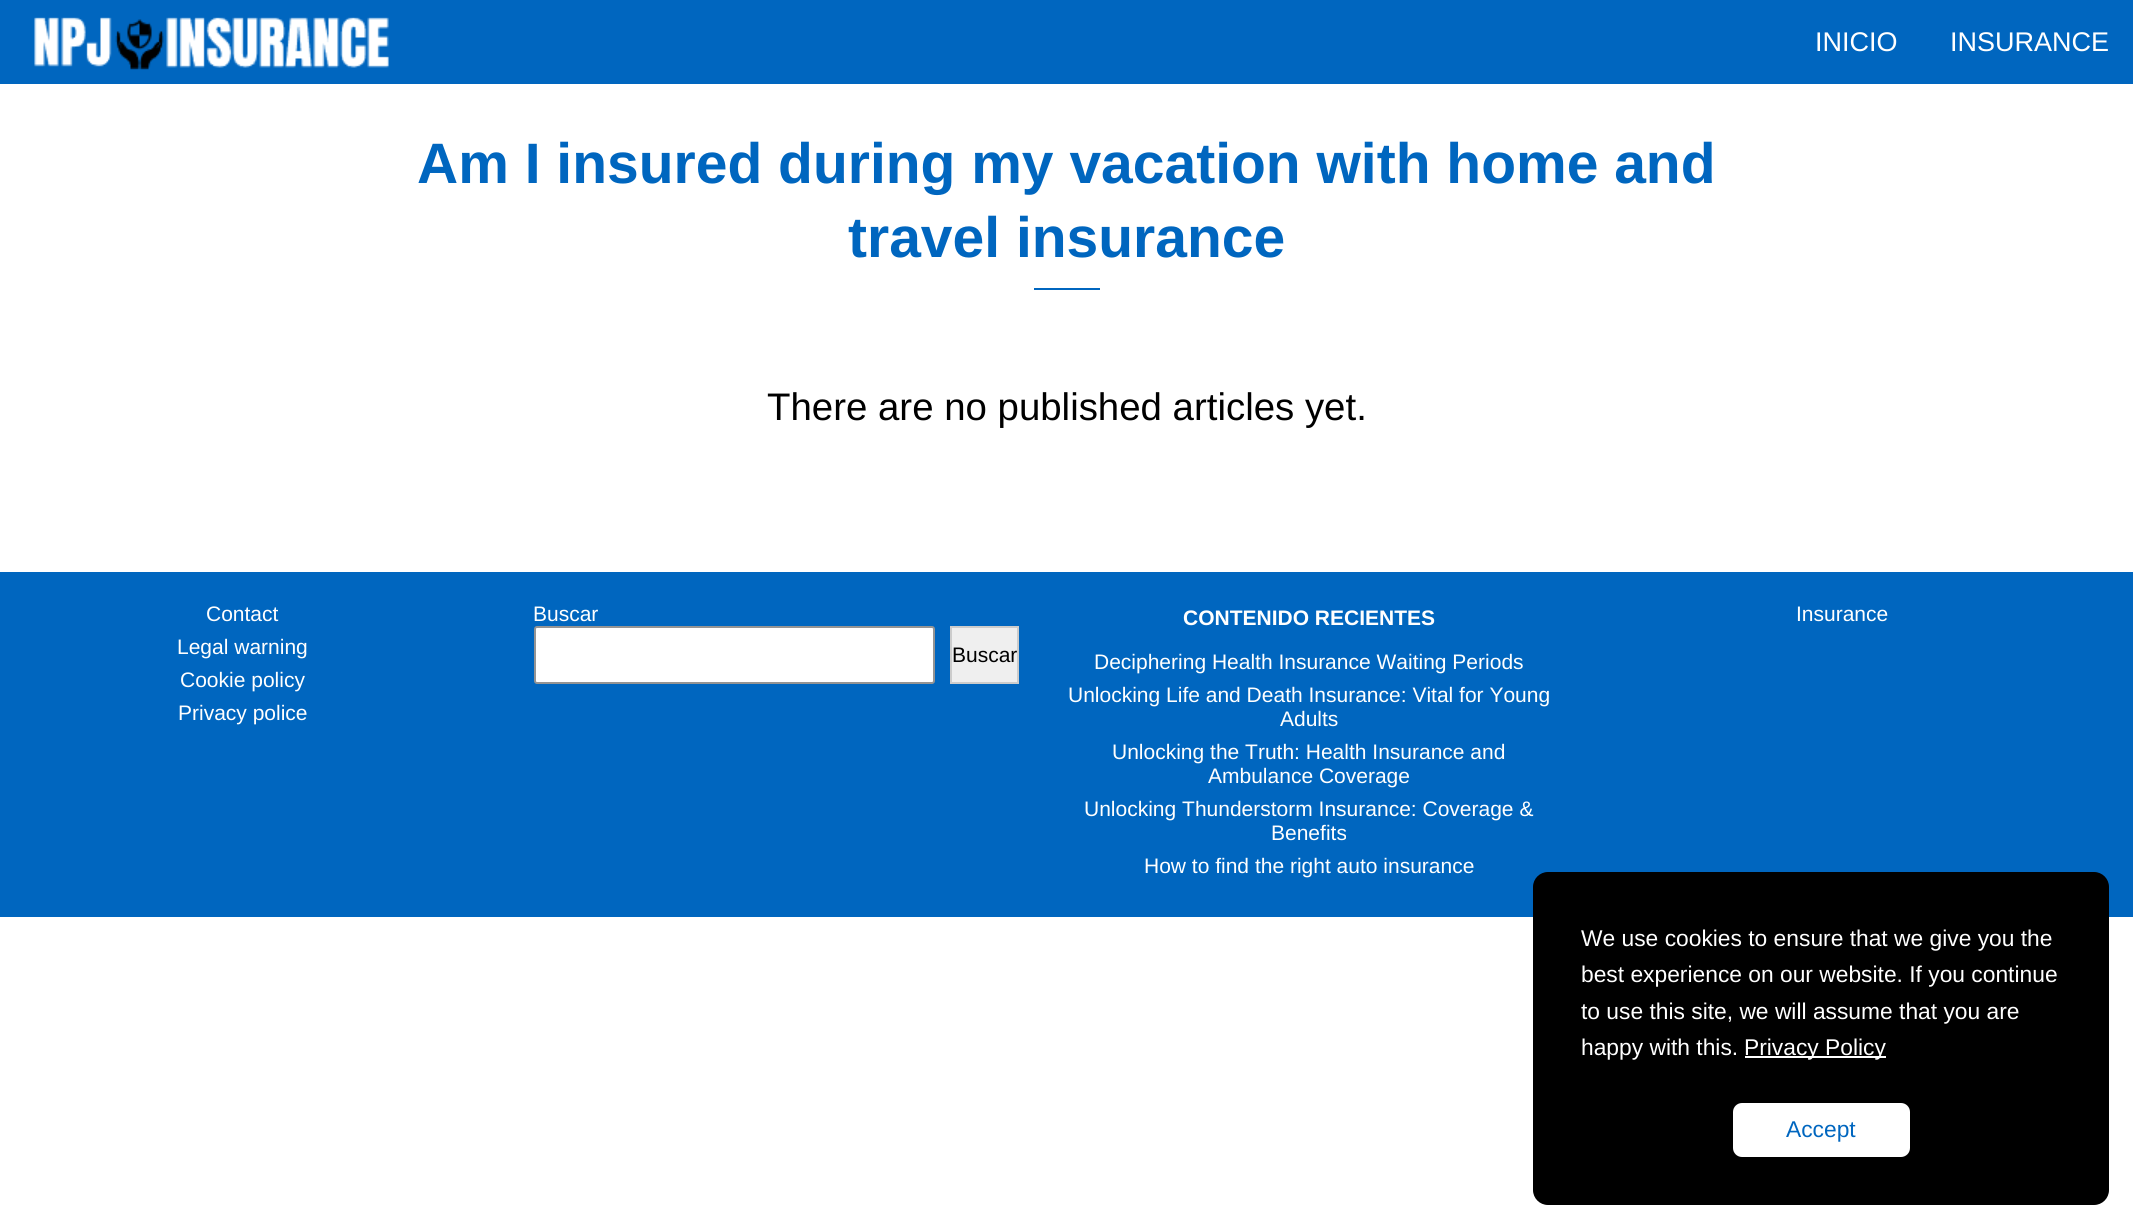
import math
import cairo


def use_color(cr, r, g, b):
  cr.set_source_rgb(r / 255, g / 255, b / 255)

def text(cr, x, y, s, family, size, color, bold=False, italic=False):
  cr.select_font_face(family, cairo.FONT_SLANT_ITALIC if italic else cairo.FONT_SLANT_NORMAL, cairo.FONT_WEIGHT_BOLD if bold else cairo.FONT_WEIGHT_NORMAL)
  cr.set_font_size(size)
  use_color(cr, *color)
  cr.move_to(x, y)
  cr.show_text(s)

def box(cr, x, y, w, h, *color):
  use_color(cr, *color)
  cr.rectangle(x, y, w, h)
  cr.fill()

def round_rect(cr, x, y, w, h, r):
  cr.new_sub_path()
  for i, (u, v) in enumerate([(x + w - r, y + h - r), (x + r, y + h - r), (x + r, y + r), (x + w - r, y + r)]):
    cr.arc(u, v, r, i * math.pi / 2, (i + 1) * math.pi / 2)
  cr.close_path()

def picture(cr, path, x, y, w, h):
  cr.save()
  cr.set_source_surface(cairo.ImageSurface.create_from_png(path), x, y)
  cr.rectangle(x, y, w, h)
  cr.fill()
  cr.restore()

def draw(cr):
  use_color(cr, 255, 255, 255)
  cr.paint()
  box(cr, 0, 0, 2133, 84, 0, 102, 191)
  picture(cr, "img_01.png", 34, 17, 355, 53)
  box(cr, 1034, 288, 66, 2, 0, 102, 191)
  box(cr, 0, 572, 2133, 345, 0, 102, 191)
  use_color(cr, 255, 255, 255)
  round_rect(cr, 535, 627, 399, 56, 2)
  cr.fill_preserve()
  use_color(cr, 148, 148, 148)
  cr.stroke()
  use_color(cr, 239, 239, 239)
  cr.rectangle(951, 627, 67, 56)
  cr.fill_preserve()
  use_color(cr, 204, 204, 204)
  cr.stroke()
  use_color(cr, 0, 0, 0)
  round_rect(cr, 1533, 872, 576, 333, 15)
  cr.fill()
  box(cr, 1745, 1056, 141, 2, 255, 255, 255)
  round_rect(cr, 1733, 1103, 177, 54, 9)
  cr.fill()
  text(cr, 1815, 51, "INICIO", "Liberation Sans", 27, (255, 255, 255))
  text(cr, 1950, 51, "INSURANCE", "Liberation Sans", 27, (255, 255, 255))
  text(cr, 417, 183, "Am I insured during my vacation with home and", "Liberation Sans", 57, (0, 102, 191), bold=True)
  text(cr, 848, 257, "travel insurance", "Liberation Sans", 57, (0, 102, 191), bold=True)
  text(cr, 767, 420, "There are no published articles yet.", "Liberation Sans", 38.4, (0, 0, 0))
  text(cr, 206, 621, "Contact", "Liberation Sans", 21, (255, 255, 255))
  text(cr, 177, 654, "Legal warning", "Liberation Sans", 21, (255, 255, 255))
  text(cr, 180, 687, "Cookie policy", "Liberation Sans", 21, (255, 255, 255))
  text(cr, 178, 720, "Privacy police", "Liberation Sans", 21, (255, 255, 255))
  text(cr, 533, 621, "Buscar", "Liberation Sans", 21, (255, 255, 255))
  text(cr, 952, 662, "Buscar", "Liberation Sans", 21, (0, 0, 0))
  text(cr, 1183, 625, "CONTENIDO RECIENTES", "Liberation Sans", 21, (255, 255, 255), bold=True)
  text(cr, 1094, 669, "Deciphering Health Insurance Waiting Periods", "Liberation Sans", 21, (255, 255, 255))
  text(cr, 1068, 702, "Unlocking Life and Death Insurance: Vital for Young", "Liberation Sans", 21, (255, 255, 255))
  text(cr, 1280, 726, "Adults", "Liberation Sans", 21, (255, 255, 255))
  text(cr, 1112, 759, "Unlocking the Truth: Health Insurance and", "Liberation Sans", 21, (255, 255, 255))
  text(cr, 1208, 783, "Ambulance Coverage", "Liberation Sans", 21, (255, 255, 255))
  text(cr, 1084, 816, "Unlocking Thunderstorm Insurance: Coverage &", "Liberation Sans", 21, (255, 255, 255))
  text(cr, 1271, 840, "Benefits", "Liberation Sans", 21, (255, 255, 255))
  text(cr, 1144, 873, "How to find the right auto insurance", "Liberation Sans", 21, (255, 255, 255))
  text(cr, 1796, 621, "Insurance", "Liberation Sans", 21, (255, 255, 255))
  text(cr, 1581, 946, "We use cookies to ensure that we give you the", "Liberation Sans", 22.8, (255, 255, 255))
  text(cr, 1581, 982, "best experience on our website. If you continue", "Liberation Sans", 22.8, (255, 255, 255))
  text(cr, 1581, 1019, "to use this site, we will assume that you are", "Liberation Sans", 22.8, (255, 255, 255))
  text(cr, 1581, 1055, "happy with this.", "Liberation Sans", 22.8, (255, 255, 255))
  text(cr, 1744, 1055, "Privacy Policy", "Liberation Sans", 22.8, (255, 255, 255))
  text(cr, 1786, 1137, "Accept", "Liberation Sans", 22.8, (0, 102, 191))


surface = cairo.ImageSurface(cairo.FORMAT_RGB24, 2133, 1228)
cr = cairo.Context(surface)
options = cairo.FontOptions()
options.set_hint_metrics(cairo.HINT_METRICS_OFF)
options.set_hint_style(cairo.HINT_STYLE_NONE)
cr.set_font_options(options)
cr.set_miter_limit(4)
draw(cr)
surface.write_to_png("out.png")
